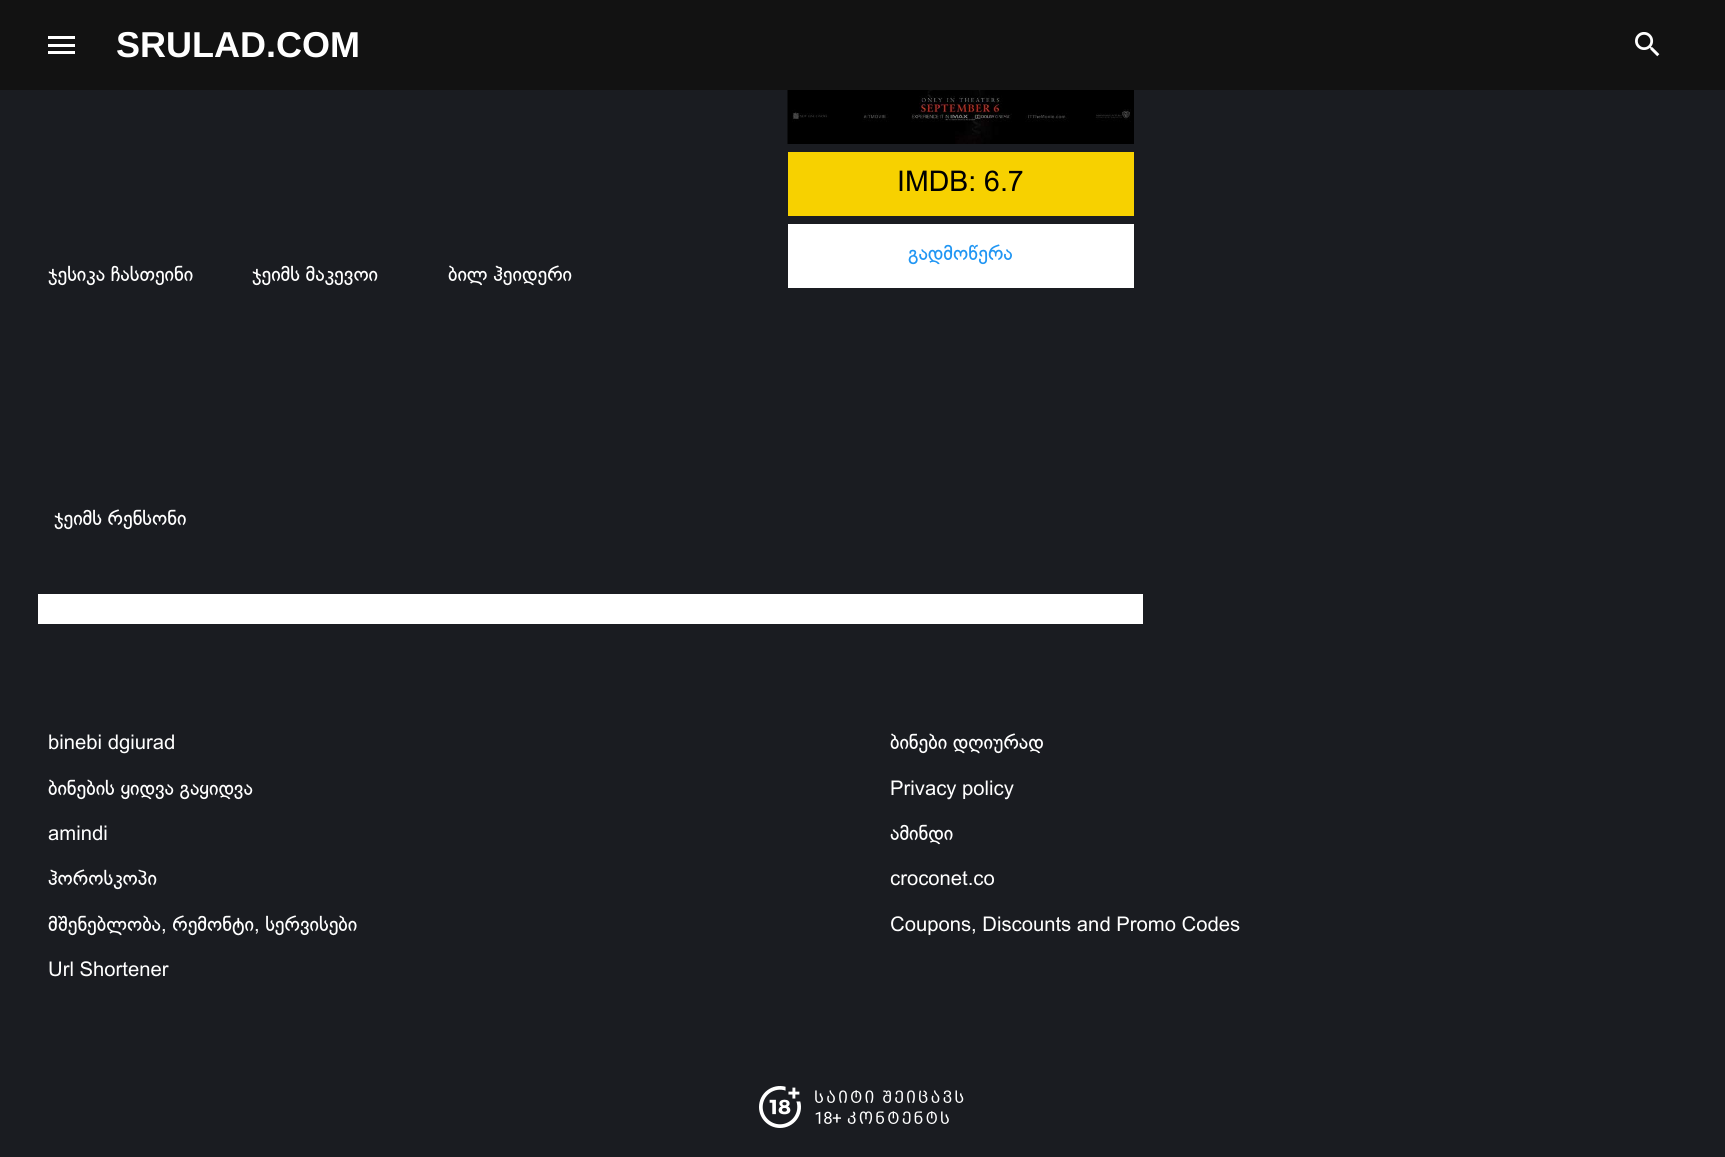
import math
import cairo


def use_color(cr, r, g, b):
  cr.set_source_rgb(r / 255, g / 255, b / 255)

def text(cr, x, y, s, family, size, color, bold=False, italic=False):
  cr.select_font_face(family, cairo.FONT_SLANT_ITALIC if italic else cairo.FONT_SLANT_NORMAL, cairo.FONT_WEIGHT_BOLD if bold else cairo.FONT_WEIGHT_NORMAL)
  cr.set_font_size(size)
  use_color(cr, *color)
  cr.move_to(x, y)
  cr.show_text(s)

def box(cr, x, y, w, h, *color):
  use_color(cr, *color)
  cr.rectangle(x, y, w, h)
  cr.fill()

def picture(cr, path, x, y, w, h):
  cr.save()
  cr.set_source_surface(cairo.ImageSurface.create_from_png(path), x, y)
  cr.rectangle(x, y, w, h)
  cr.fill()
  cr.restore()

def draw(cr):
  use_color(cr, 26, 28, 33)
  cr.paint()
  box(cr, 0, 0, 1725, 90, 18, 18, 18)
  box(cr, 48, 36, 27, 3, 255, 255, 255)
  box(cr, 48, 44, 27, 3, 255, 255, 255)
  box(cr, 48, 51, 27, 3, 255, 255, 255)
  picture(cr, "img_01.png", 1635, 32, 25, 25)
  picture(cr, "img_02.png", 787, 90, 347, 54)
  box(cr, 788, 152, 346, 64, 247, 209, 0)
  box(cr, 788, 224, 346, 64, 255, 255, 255)
  box(cr, 38, 594, 1105, 30, 255, 255, 255)
  picture(cr, "img_03.png", 759, 1086, 205, 42)
  text(cr, 116, 57, "SRULAD.COM", "Liberation Sans", 36, (255, 255, 255), bold=True)
  text(cr, 897, 191, "IMDB: 6.7", "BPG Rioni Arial", 28.5, (0, 0, 0))
  text(cr, 908, 260, "გადმოწერა", "BPG Rioni Arial", 20.25, (33, 150, 243))
  text(cr, 48, 281, "ჯესიკა ჩასთეინი", "BPG Rioni Arial", 20.25, (255, 255, 255))
  text(cr, 252, 281, "ჯეიმს მაკევოი", "BPG Rioni Arial", 20.25, (255, 255, 255))
  text(cr, 448, 281, "ბილ ჰეიდერი", "BPG Rioni Arial", 20.25, (255, 255, 255))
  text(cr, 54, 525, "ჯეიმს რენსონი", "BPG Rioni Arial", 20.25, (255, 255, 255))
  text(cr, 48, 749, "binebi dgiurad", "BPG Rioni Arial", 20.25, (255, 255, 255))
  text(cr, 890, 749, "ბინები დღიურად", "BPG Rioni Arial", 20.25, (255, 255, 255))
  text(cr, 48, 795, "ბინების ყიდვა გაყიდვა", "BPG Rioni Arial", 20.25, (255, 255, 255))
  text(cr, 890, 795, "Privacy policy", "BPG Rioni Arial", 20.25, (255, 255, 255))
  text(cr, 48, 840, "amindi", "BPG Rioni Arial", 20.25, (255, 255, 255))
  text(cr, 890, 840, "ამინდი", "BPG Rioni Arial", 20.25, (255, 255, 255))
  text(cr, 48, 885, "ჰოროსკოპი", "BPG Rioni Arial", 20.25, (255, 255, 255))
  text(cr, 890, 885, "croconet.co", "BPG Rioni Arial", 20.25, (255, 255, 255))
  text(cr, 48, 931, "მშენებლობა, რემონტი, სერვისები", "BPG Rioni Arial", 20.25, (255, 255, 255))
  text(cr, 890, 931, "Coupons, Discounts and Promo Codes", "BPG Rioni Arial", 20.25, (255, 255, 255))
  text(cr, 48, 976, "Url Shortener", "BPG Rioni Arial", 20.25, (255, 255, 255))


surface = cairo.ImageSurface(cairo.FORMAT_RGB24, 1725, 1157)
cr = cairo.Context(surface)
options = cairo.FontOptions()
options.set_hint_metrics(cairo.HINT_METRICS_OFF)
options.set_hint_style(cairo.HINT_STYLE_NONE)
cr.set_font_options(options)
cr.set_miter_limit(4)
draw(cr)
surface.write_to_png("out.png")
